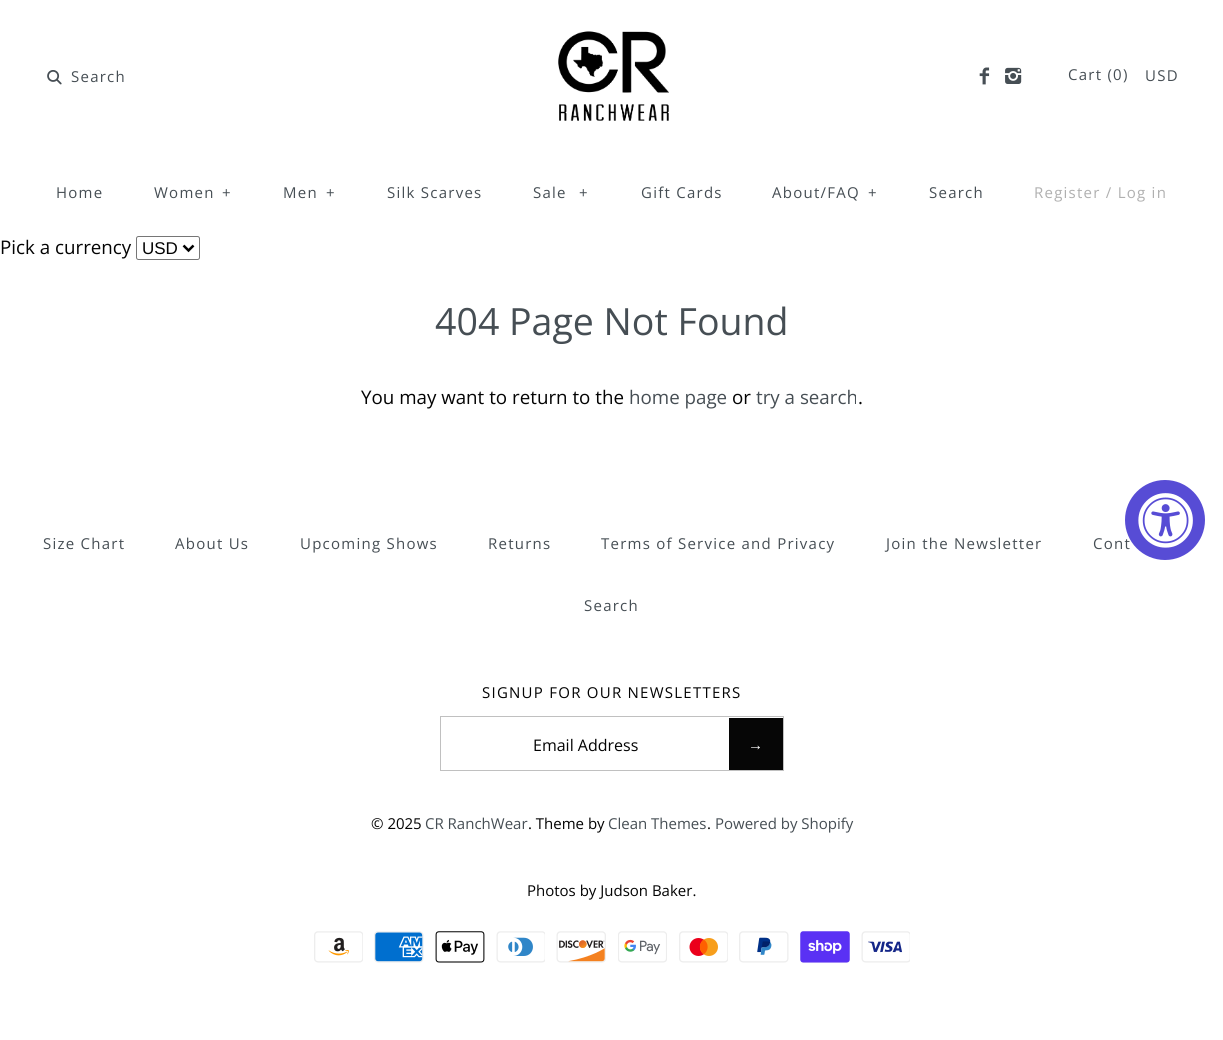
import math
import cairo


def use_color(cr, r, g, b):
  cr.set_source_rgb(r / 255, g / 255, b / 255)

def text(cr, x, y, s, family, size, color, bold=False, italic=False):
  cr.select_font_face(family, cairo.FONT_SLANT_ITALIC if italic else cairo.FONT_SLANT_NORMAL, cairo.FONT_WEIGHT_BOLD if bold else cairo.FONT_WEIGHT_NORMAL)
  cr.set_font_size(size)
  use_color(cr, *color)
  cr.move_to(x, y)
  cr.show_text(s)

def spaced_text(cr, x, y, s, letter, word):
  cr.move_to(x, y)
  for ch in s:
    cr.show_text(ch)
    cr.rel_move_to(letter + word * (ch == ' '), 0)

def box(cr, x, y, w, h, *color):
  use_color(cr, *color)
  cr.rectangle(x, y, w, h)
  cr.fill()

def round_rect(cr, x, y, w, h, r):
  cr.new_sub_path()
  for i, (u, v) in enumerate([(x + w - r, y + h - r), (x + r, y + h - r), (x + r, y + r), (x + w - r, y + r)]):
    cr.arc(u, v, r, i * math.pi / 2, (i + 1) * math.pi / 2)
  cr.close_path()

def picture(cr, path, x, y, w, h):
  cr.save()
  cr.set_source_surface(cairo.ImageSurface.create_from_png(path), x, y)
  cr.rectangle(x, y, w, h)
  cr.fill()
  cr.restore()

def draw(cr):
  use_color(cr, 255, 255, 255)
  cr.paint()
  picture(cr, "img_01.png", 558, 31, 111, 90)
  picture(cr, "img_02.png", 47, 70, 15, 15)
  picture(cr, "img_03.png", 979, 67, 11, 18)
  picture(cr, "img_04.png", 1005, 67, 17, 17)
  round_rect(cr, 136.5, 236.5, 63, 23, 2)
  use_color(cr, 118, 118, 118)
  cr.set_line_width(1)
  cr.stroke()
  cr.new_path()
  cr.move_to(183.5, 245.5)
  cr.line_to(188.5, 250.5)
  cr.line_to(193.5, 245.5)
  use_color(cr, 0, 0, 0)
  cr.set_line_width(2.5)
  cr.stroke()
  cr.rectangle(440.5, 716.5, 343, 54)
  use_color(cr, 192, 192, 192)
  cr.set_line_width(1)
  cr.stroke()
  box(cr, 729, 718, 54, 52, 6, 6, 6)
  picture(cr, "img_06.png", 314, 931, 49, 32)
  picture(cr, "img_07.png", 374, 931, 50, 32)
  picture(cr, "img_08.png", 435, 931, 50, 32)
  picture(cr, "img_09.png", 496, 931, 49, 32)
  picture(cr, "img_10.png", 556, 931, 50, 32)
  picture(cr, "img_11.png", 618, 931, 49, 32)
  picture(cr, "img_12.png", 679, 931, 49, 32)
  picture(cr, "img_13.png", 739, 931, 50, 32)
  picture(cr, "img_14.png", 800, 931, 50, 32)
  picture(cr, "img_15.png", 861, 931, 49, 32)
  cr.select_font_face("Open Sans")
  cr.set_font_size(15)
  use_color(cr, 70, 78, 84)
  spaced_text(cr, 71, 82, "Search", 1.25, 0)
  spaced_text(cr, 1068, 80, "Cart (0)", 1.25, 0)
  spaced_text(cr, 1145, 81, "USD", 1.25, 0)
  spaced_text(cr, 56, 198, "Home", 1.25, 0)
  spaced_text(cr, 154, 198, "Women", 1.25, 0)
  spaced_text(cr, 222, 198, "+", 1.25, 0)
  spaced_text(cr, 283, 198, "Men", 1.25, 0)
  spaced_text(cr, 326, 198, "+", 1.25, 0)
  spaced_text(cr, 387, 198, "Silk Scarves", 1.25, 0)
  spaced_text(cr, 533, 198, "Sale", 1.25, 0)
  spaced_text(cr, 579, 198, "+", 1.25, 0)
  spaced_text(cr, 641, 198, "Gift Cards", 1.25, 0)
  spaced_text(cr, 772, 198, "About/FAQ", 1.25, 0)
  spaced_text(cr, 868, 198, "+", 1.25, 0)
  spaced_text(cr, 929, 198, "Search", 1.25, 0)
  use_color(cr, 176, 176, 176)
  spaced_text(cr, 1034, 198, "Register / Log in", 1.25, 0)
  text(cr, 0, 254, "Pick a currency", "Open Sans", 18.75, (3, 3, 3))
  text(cr, 142, 254, "USD", "Liberation Sans", 17, (3, 3, 3))
  text(cr, 435, 335, "404 Page Not Found", "Open Sans", 37.5, (70, 78, 84))
  text(cr, 361, 404, "You may want to return to the", "Open Sans", 18.75, (3, 3, 3))
  text(cr, 629, 404, "home page", "Open Sans", 18.75, (70, 78, 84))
  text(cr, 732, 404, "or", "Open Sans", 18.75, (3, 3, 3))
  text(cr, 756, 404, "try a search", "Open Sans", 18.75, (70, 78, 84))
  text(cr, 858, 404, ".", "Open Sans", 18.75, (3, 3, 3))
  cr.set_font_size(15)
  use_color(cr, 70, 78, 84)
  spaced_text(cr, 43, 549, "Size Chart", 1.25, 0)
  spaced_text(cr, 175, 549, "About Us", 1.25, 0)
  spaced_text(cr, 300, 549, "Upcoming Shows", 1.25, 0)
  spaced_text(cr, 488, 549, "Returns", 1.25, 0)
  spaced_text(cr, 601, 549, "Terms of Service and Privacy", 1.25, 0)
  spaced_text(cr, 886, 549, "Join the Newsletter", 1.25, 0)
  spaced_text(cr, 1093, 549, "Cont", 1.25, 0)
  use_color(cr, 87, 76, 213)
  cr.new_path()
  cr.arc(1165, 520, 40, 0, 2 * math.pi)
  cr.fill()
  picture(cr, "img_05.png", 1138, 493, 55, 55)
  use_color(cr, 70, 78, 84)
  spaced_text(cr, 584, 611, "Search", 1.25, 0)
  use_color(cr, 3, 3, 3)
  spaced_text(cr, 482, 698, "SIGNUP FOR OUR NEWSLETTERS", 1.25, 0)
  text(cr, 533, 751, "Email Address", "Open Sans", 16, (3, 3, 3))
  cr.select_font_face("Liberation Serif")
  cr.set_font_size(15)
  use_color(cr, 255, 255, 255)
  spaced_text(cr, 748, 750, "→", 1.25, 0)
  text(cr, 371, 829, "© 2025", "Open Sans", 15, (3, 3, 3))
  text(cr, 425, 829, "CR RanchWear", "Open Sans", 15, (70, 78, 84))
  text(cr, 528, 829, ". Theme by", "Open Sans", 15, (3, 3, 3))
  text(cr, 608, 829, "Clean Themes", "Open Sans", 15, (70, 78, 84))
  text(cr, 707, 829, ".", "Open Sans", 15, (3, 3, 3))
  text(cr, 715, 829, "Powered by Shopify", "Open Sans", 15, (70, 78, 84))
  text(cr, 527, 896, "Photos by Judson Baker.", "Open Sans", 15, (3, 3, 3))


surface = cairo.ImageSurface(cairo.FORMAT_RGB24, 1223, 1040)
cr = cairo.Context(surface)
options = cairo.FontOptions()
options.set_hint_metrics(cairo.HINT_METRICS_OFF)
options.set_hint_style(cairo.HINT_STYLE_NONE)
cr.set_font_options(options)
cr.set_miter_limit(4)
draw(cr)
surface.write_to_png("out.png")
